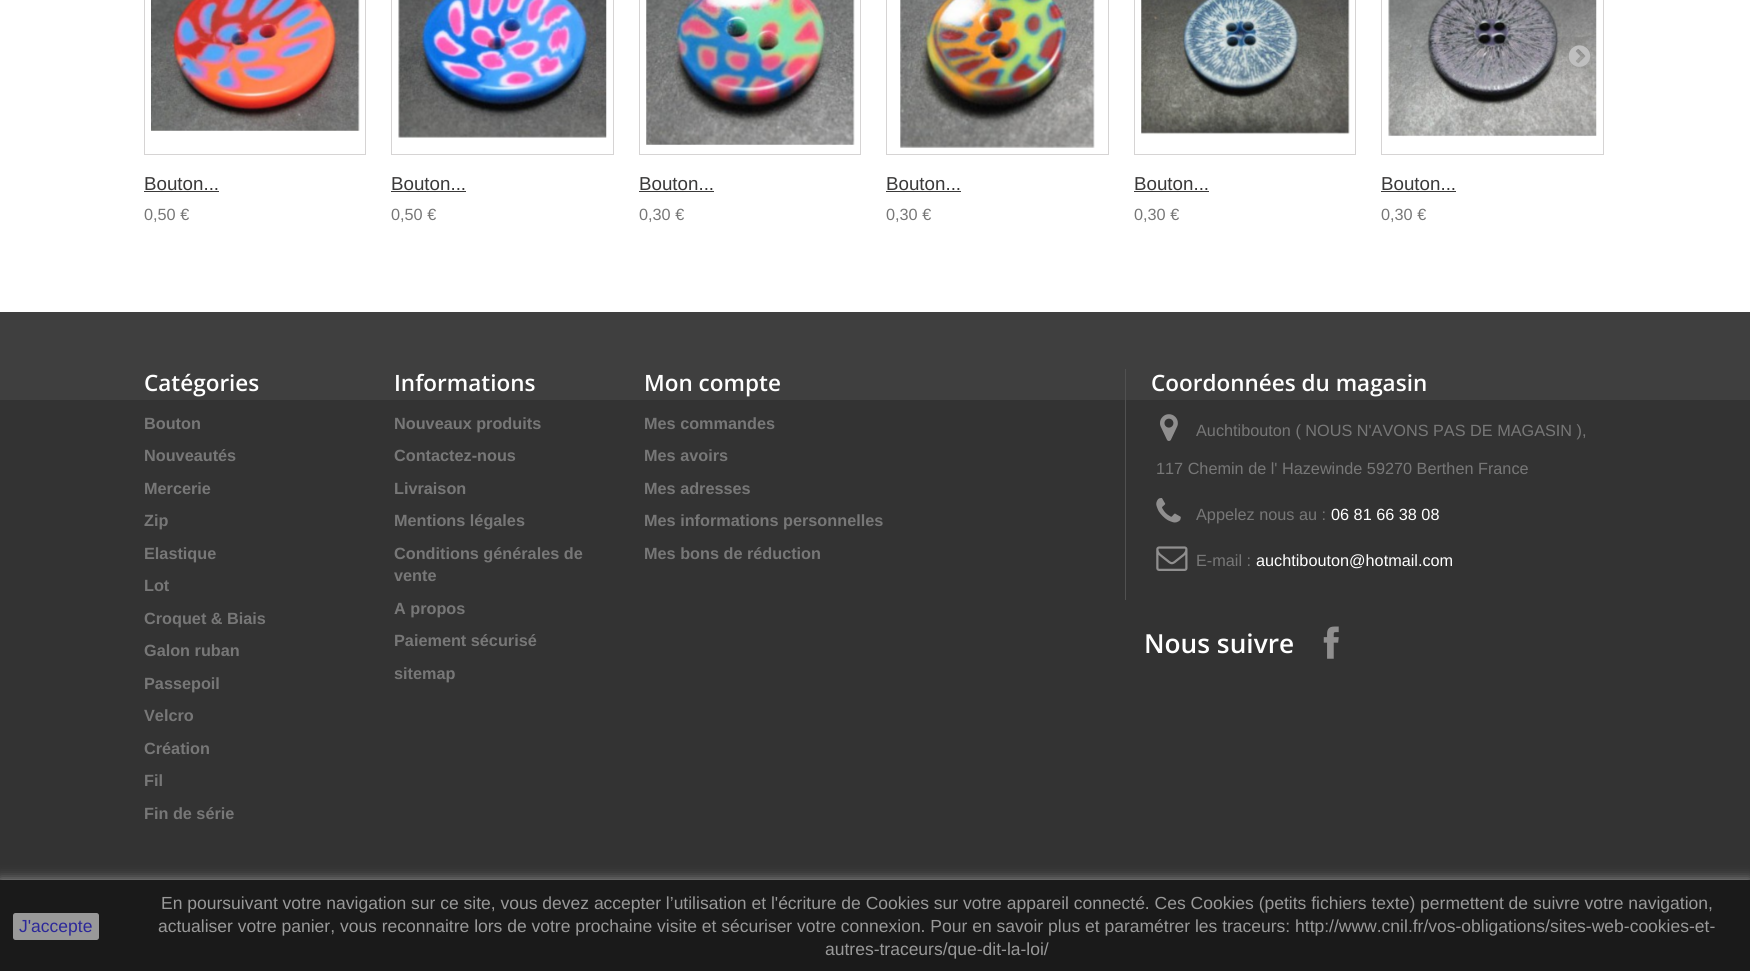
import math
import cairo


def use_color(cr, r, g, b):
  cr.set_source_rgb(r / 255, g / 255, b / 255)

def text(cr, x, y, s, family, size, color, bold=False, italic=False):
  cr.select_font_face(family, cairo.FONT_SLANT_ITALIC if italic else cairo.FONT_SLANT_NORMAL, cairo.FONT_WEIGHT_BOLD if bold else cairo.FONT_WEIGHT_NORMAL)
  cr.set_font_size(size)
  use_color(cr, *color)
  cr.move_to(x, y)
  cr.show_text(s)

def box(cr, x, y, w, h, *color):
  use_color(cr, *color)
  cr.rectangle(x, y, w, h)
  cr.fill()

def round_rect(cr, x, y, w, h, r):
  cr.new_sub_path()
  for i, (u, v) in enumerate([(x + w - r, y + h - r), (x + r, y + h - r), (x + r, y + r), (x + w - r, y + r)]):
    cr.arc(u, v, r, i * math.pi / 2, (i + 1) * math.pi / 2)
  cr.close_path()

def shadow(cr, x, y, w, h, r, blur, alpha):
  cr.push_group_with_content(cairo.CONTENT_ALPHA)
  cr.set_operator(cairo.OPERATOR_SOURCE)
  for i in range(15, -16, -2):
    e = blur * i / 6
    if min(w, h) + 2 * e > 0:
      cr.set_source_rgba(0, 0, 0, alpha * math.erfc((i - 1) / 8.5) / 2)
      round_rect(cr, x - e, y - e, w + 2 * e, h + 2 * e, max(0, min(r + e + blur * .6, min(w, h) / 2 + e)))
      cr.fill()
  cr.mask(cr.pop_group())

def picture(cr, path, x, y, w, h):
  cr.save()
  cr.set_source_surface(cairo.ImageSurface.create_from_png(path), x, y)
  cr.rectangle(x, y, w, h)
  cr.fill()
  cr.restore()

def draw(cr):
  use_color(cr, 255, 255, 255)
  cr.paint()
  cr.rectangle(1381.5, -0.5, 222, 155)
  use_color(cr, 214, 212, 212)
  cr.set_line_width(1)
  cr.stroke()
  picture(cr, "img_07.png", 1388, 0, 209, 137)
  picture(cr, "img_01.png", 1568, 45, 23, 22)
  cr.rectangle(144.5, -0.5, 221, 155)
  cr.stroke()
  picture(cr, "img_02.png", 151, 0, 209, 131)
  box(cr, 144, 191, 75, 1, 58, 57, 57)
  cr.rectangle(391.5, -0.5, 222, 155)
  use_color(cr, 214, 212, 212)
  cr.stroke()
  picture(cr, "img_03.png", 398, 0, 209, 138)
  box(cr, 391, 191, 75, 1, 58, 57, 57)
  cr.rectangle(639.5, -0.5, 221, 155)
  use_color(cr, 214, 212, 212)
  cr.stroke()
  picture(cr, "img_04.png", 646, 0, 209, 145)
  box(cr, 639, 191, 75, 1, 58, 57, 57)
  cr.rectangle(886.5, -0.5, 222, 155)
  use_color(cr, 214, 212, 212)
  cr.stroke()
  picture(cr, "img_05.png", 900, 0, 195, 148)
  box(cr, 886, 191, 75, 1, 58, 57, 57)
  cr.rectangle(1134.5, -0.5, 221, 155)
  use_color(cr, 214, 212, 212)
  cr.stroke()
  picture(cr, "img_06.png", 1141, 0, 209, 135)
  box(cr, 1134, 191, 75, 1, 58, 57, 57)
  box(cr, 1381, 191, 75, 1, 58, 57, 57)
  box(cr, 0, 400, 1750, 480, 51, 51, 51)
  box(cr, 0, 312, 1750, 88, 63, 63, 63)
  box(cr, 1125, 369, 1, 231, 81, 81, 81)
  picture(cr, "img_08.png", 1160, 414, 18, 27)
  picture(cr, "img_09.png", 1156, 498, 25, 25)
  picture(cr, "img_10.png", 1156, 546, 32, 25)
  picture(cr, "img_11.png", 1323, 626, 16, 33)
  use_color(cr, 153, 153, 153)
  shadow(cr, 0, 880, 1750, 91, 0, 6, 1)
  box(cr, 0, 880, 1750, 91, 26, 26, 26)
  use_color(cr, 153, 153, 153)
  round_rect(cr, 13, 913, 86, 27, 2.5)
  cr.fill()
  text(cr, 144, 190, "Bouton...", "Liberation Sans", 18.75, (58, 57, 57))
  text(cr, 144, 220, "0,50 €", "Liberation Sans", 16.25, (119, 119, 119))
  text(cr, 391, 190, "Bouton...", "Liberation Sans", 18.75, (58, 57, 57))
  text(cr, 391, 220, "0,50 €", "Liberation Sans", 16.25, (119, 119, 119))
  text(cr, 639, 190, "Bouton...", "Liberation Sans", 18.75, (58, 57, 57))
  text(cr, 639, 220, "0,30 €", "Liberation Sans", 16.25, (119, 119, 119))
  text(cr, 886, 190, "Bouton...", "Liberation Sans", 18.75, (58, 57, 57))
  text(cr, 886, 220, "0,30 €", "Liberation Sans", 16.25, (119, 119, 119))
  text(cr, 1134, 190, "Bouton...", "Liberation Sans", 18.75, (58, 57, 57))
  text(cr, 1134, 220, "0,30 €", "Liberation Sans", 16.25, (119, 119, 119))
  text(cr, 1381, 190, "Bouton...", "Liberation Sans", 18.75, (58, 57, 57))
  text(cr, 1381, 220, "0,30 €", "Liberation Sans", 16.25, (119, 119, 119))
  text(cr, 144, 391, "Catégories", "Open Sans SemiBold", 22.5, (255, 255, 255))
  text(cr, 144, 429, "Bouton", "Liberation Sans", 16.25, (119, 119, 119), bold=True)
  text(cr, 144, 461, "Nouveautés", "Liberation Sans", 16.25, (119, 119, 119), bold=True)
  text(cr, 144, 494, "Mercerie", "Liberation Sans", 16.25, (119, 119, 119), bold=True)
  text(cr, 144, 526, "Zip", "Liberation Sans", 16.25, (119, 119, 119), bold=True)
  text(cr, 144, 559, "Elastique", "Liberation Sans", 16.25, (119, 119, 119), bold=True)
  text(cr, 144, 591, "Lot", "Liberation Sans", 16.25, (119, 119, 119), bold=True)
  text(cr, 144, 624, "Croquet & Biais", "Liberation Sans", 16.25, (119, 119, 119), bold=True)
  text(cr, 144, 656, "Galon ruban", "Liberation Sans", 16.25, (119, 119, 119), bold=True)
  text(cr, 144, 689, "Passepoil", "Liberation Sans", 16.25, (119, 119, 119), bold=True)
  text(cr, 144, 721, "Velcro", "Liberation Sans", 16.25, (119, 119, 119), bold=True)
  text(cr, 144, 754, "Création", "Liberation Sans", 16.25, (119, 119, 119), bold=True)
  text(cr, 144, 786, "Fil", "Liberation Sans", 16.25, (119, 119, 119), bold=True)
  text(cr, 144, 819, "Fin de série", "Liberation Sans", 16.25, (119, 119, 119), bold=True)
  text(cr, 394, 391, "Informations", "Open Sans SemiBold", 22.5, (255, 255, 255))
  text(cr, 394, 429, "Nouveaux produits", "Liberation Sans", 16.25, (119, 119, 119), bold=True)
  text(cr, 394, 461, "Contactez-nous", "Liberation Sans", 16.25, (119, 119, 119), bold=True)
  text(cr, 394, 494, "Livraison", "Liberation Sans", 16.25, (119, 119, 119), bold=True)
  text(cr, 394, 526, "Mentions légales", "Liberation Sans", 16.25, (119, 119, 119), bold=True)
  text(cr, 394, 559, "Conditions générales de", "Liberation Sans", 16.25, (119, 119, 119), bold=True)
  text(cr, 394, 581, "vente", "Liberation Sans", 16.25, (119, 119, 119), bold=True)
  text(cr, 394, 614, "A propos", "Liberation Sans", 16.25, (119, 119, 119), bold=True)
  text(cr, 394, 646, "Paiement sécurisé", "Liberation Sans", 16.25, (119, 119, 119), bold=True)
  text(cr, 394, 679, "sitemap", "Liberation Sans", 16.25, (119, 119, 119), bold=True)
  text(cr, 644, 391, "Mon compte", "Open Sans SemiBold", 22.5, (255, 255, 255))
  text(cr, 644, 429, "Mes commandes", "Liberation Sans", 16.25, (119, 119, 119), bold=True)
  text(cr, 644, 461, "Mes avoirs", "Liberation Sans", 16.25, (119, 119, 119), bold=True)
  text(cr, 644, 494, "Mes adresses", "Liberation Sans", 16.25, (119, 119, 119), bold=True)
  text(cr, 644, 526, "Mes informations personnelles", "Liberation Sans", 16.25, (119, 119, 119), bold=True)
  text(cr, 644, 559, "Mes bons de réduction", "Liberation Sans", 16.25, (119, 119, 119), bold=True)
  text(cr, 1151, 391, "Coordonnées du magasin", "Open Sans SemiBold", 22.5, (255, 255, 255))
  text(cr, 1196, 436, "Auchtibouton ( NOUS N'AVONS PAS DE MAGASIN ),", "Liberation Sans", 16.25, (119, 119, 119))
  text(cr, 1156, 474, "117 Chemin de l' Hazewinde 59270 Berthen France", "Liberation Sans", 16.25, (119, 119, 119))
  text(cr, 1196, 520, "Appelez nous au :", "Liberation Sans", 16.25, (119, 119, 119))
  text(cr, 1331, 520, "06 81 66 38 08", "Liberation Sans", 16.25, (255, 255, 255))
  text(cr, 1196, 566, "E-mail :", "Liberation Sans", 16.25, (119, 119, 119))
  text(cr, 1256, 566, "auchtibouton@hotmail.com", "Liberation Sans", 16.25, (255, 255, 255))
  text(cr, 1144, 653, "Nous suivre", "Open Sans SemiBold", 26.25, (255, 255, 255))
  text(cr, 19, 932, "J'accepte", "Liberation Sans", 17.5, (44, 40, 153))
  text(cr, 161, 909, "En poursuivant votre navigation sur ce site, vous devez accepter l’utilisation et l'écriture de Cookies sur votre appareil connecté. Ces Cookies (petits fichiers texte) permettent de suivre votre navigation,", "Liberation Sans", 17.5, (153, 153, 153))
  text(cr, 158, 932, "actualiser votre panier, vous reconnaitre lors de votre prochaine visite et sécuriser votre connexion. Pour en savoir plus et paramétrer les traceurs: http://www.cnil.fr/vos-obligations/sites-web-cookies-et-", "Liberation Sans", 17.5, (153, 153, 153))
  text(cr, 825, 955, "autres-traceurs/que-dit-la-loi/", "Liberation Sans", 17.5, (153, 153, 153))


surface = cairo.ImageSurface(cairo.FORMAT_RGB24, 1750, 971)
cr = cairo.Context(surface)
options = cairo.FontOptions()
options.set_hint_metrics(cairo.HINT_METRICS_OFF)
options.set_hint_style(cairo.HINT_STYLE_NONE)
cr.set_font_options(options)
cr.set_miter_limit(4)
draw(cr)
surface.write_to_png("out.png")
